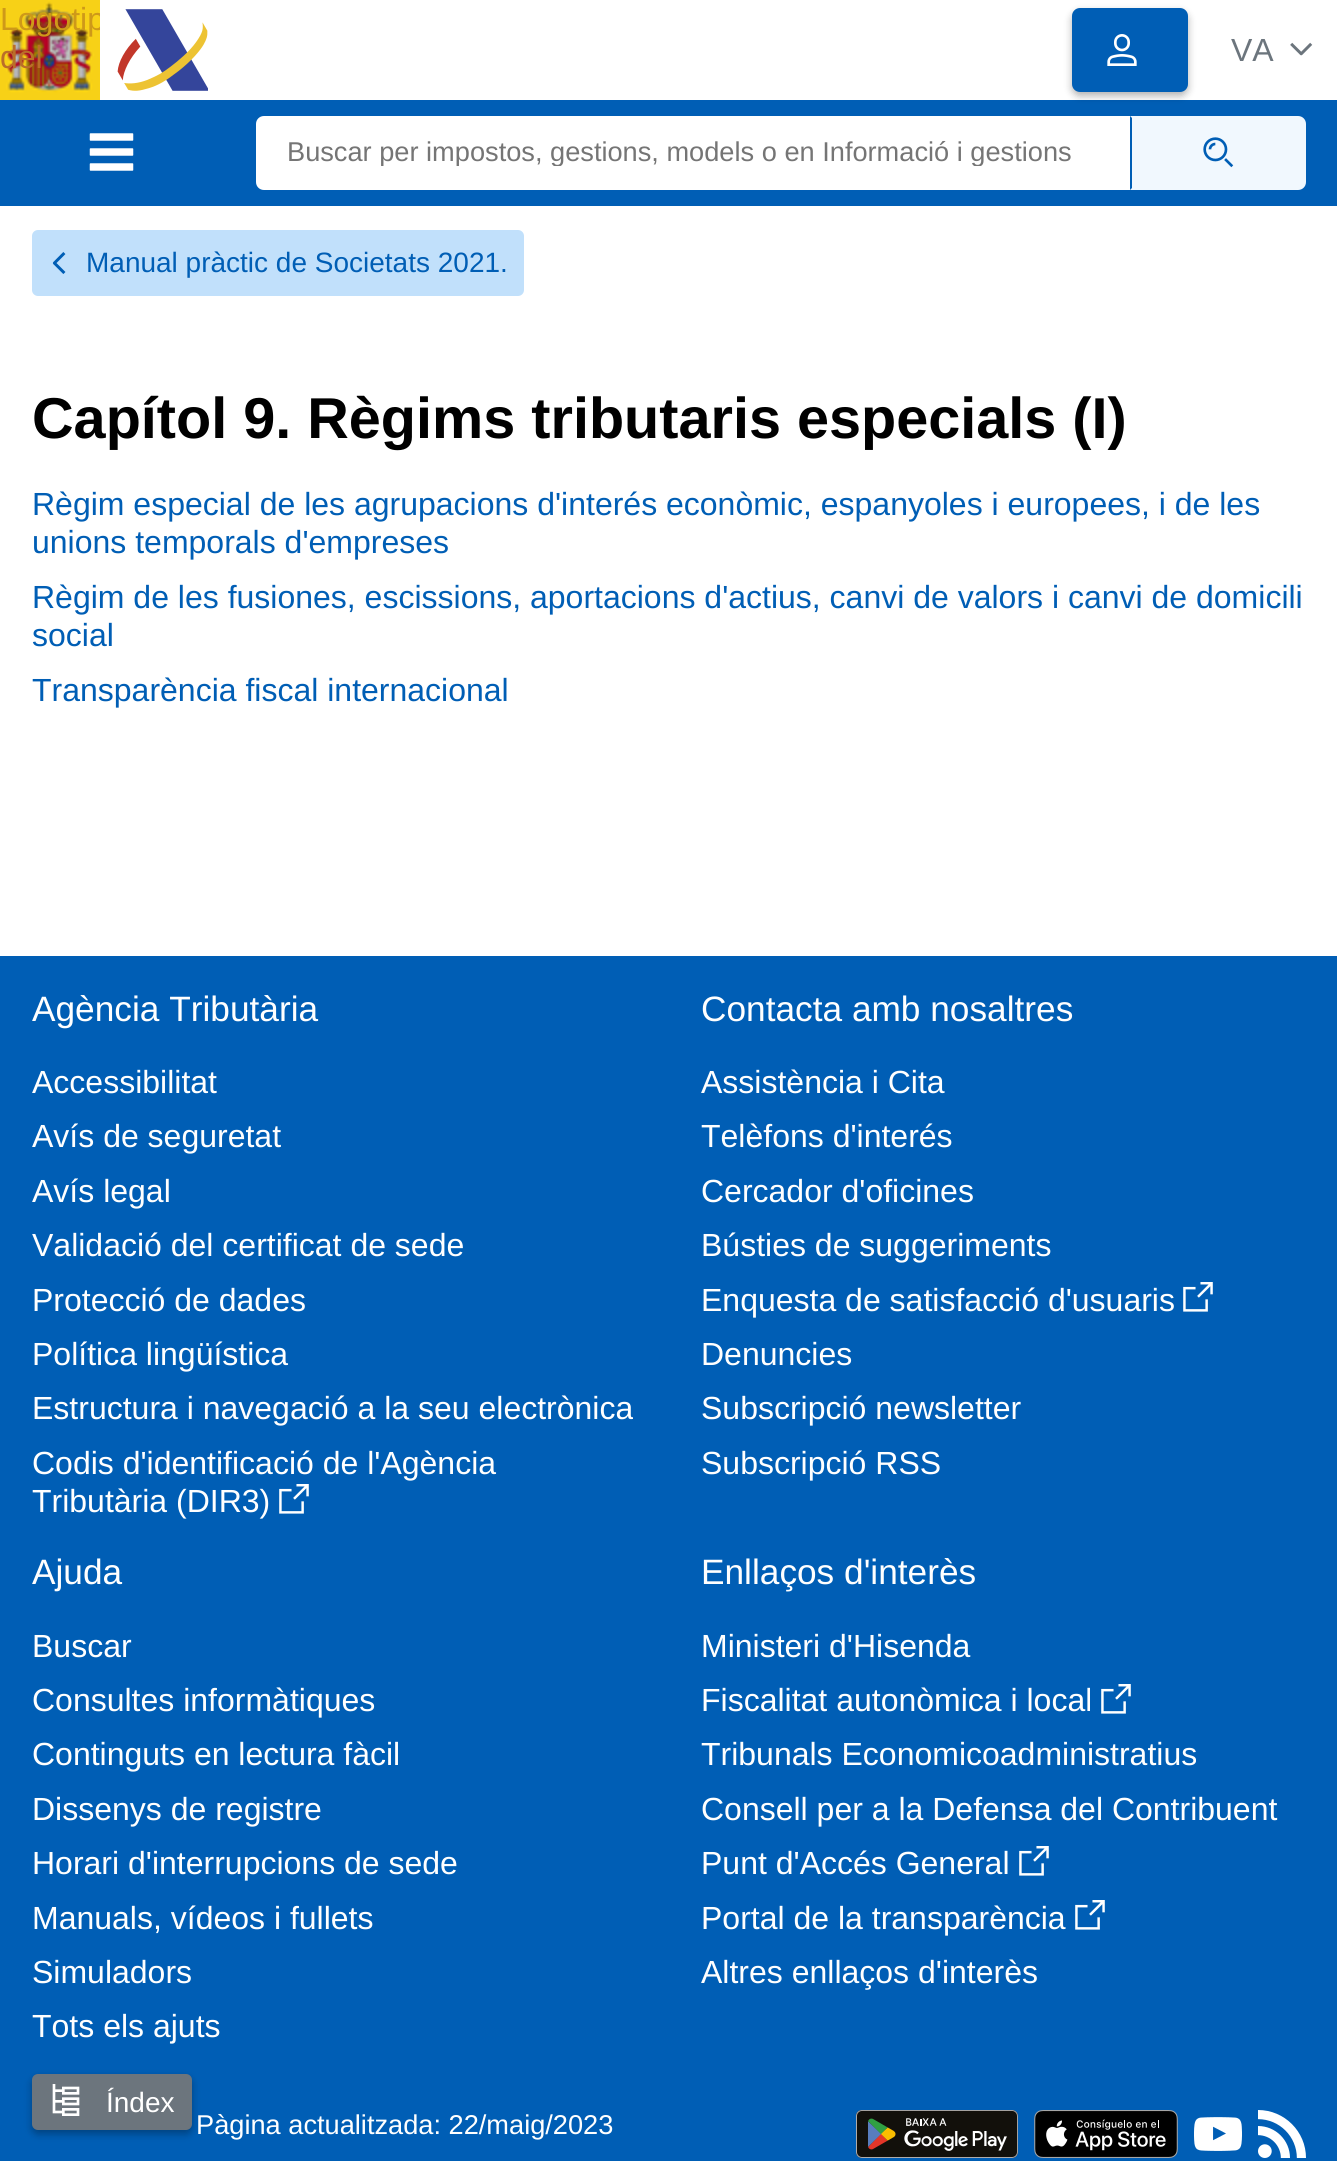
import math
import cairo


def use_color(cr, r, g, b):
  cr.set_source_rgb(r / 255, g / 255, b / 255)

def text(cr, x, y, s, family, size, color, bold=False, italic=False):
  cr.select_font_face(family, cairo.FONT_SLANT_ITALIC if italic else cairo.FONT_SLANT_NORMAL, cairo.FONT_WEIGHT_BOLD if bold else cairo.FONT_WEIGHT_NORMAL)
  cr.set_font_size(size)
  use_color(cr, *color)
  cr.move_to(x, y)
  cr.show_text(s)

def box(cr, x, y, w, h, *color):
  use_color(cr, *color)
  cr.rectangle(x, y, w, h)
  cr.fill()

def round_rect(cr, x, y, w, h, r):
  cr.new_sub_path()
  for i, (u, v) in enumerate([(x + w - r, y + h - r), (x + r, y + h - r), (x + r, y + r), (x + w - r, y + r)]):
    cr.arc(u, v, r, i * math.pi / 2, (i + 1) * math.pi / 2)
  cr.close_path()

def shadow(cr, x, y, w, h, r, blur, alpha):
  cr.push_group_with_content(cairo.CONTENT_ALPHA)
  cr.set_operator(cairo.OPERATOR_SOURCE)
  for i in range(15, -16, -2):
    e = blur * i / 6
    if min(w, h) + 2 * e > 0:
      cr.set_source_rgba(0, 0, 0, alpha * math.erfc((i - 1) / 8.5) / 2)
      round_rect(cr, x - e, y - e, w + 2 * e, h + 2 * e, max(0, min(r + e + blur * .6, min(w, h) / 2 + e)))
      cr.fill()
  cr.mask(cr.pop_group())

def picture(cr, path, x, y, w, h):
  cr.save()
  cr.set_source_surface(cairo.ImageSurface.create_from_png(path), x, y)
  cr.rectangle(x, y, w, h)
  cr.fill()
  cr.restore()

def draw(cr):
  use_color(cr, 255, 255, 255)
  cr.paint()
  picture(cr, "img_01.png", 0, 0, 100, 100)
  picture(cr, "img_02.png", 117, 9, 91, 82)
  box(cr, 0, 100, 1337, 106, 0, 94, 181)
  use_color(cr, 0, 0, 0)
  shadow(cr, 1072, 12, 116, 84, 8, 4, 0.3)
  use_color(cr, 0, 94, 181)
  round_rect(cr, 1073, 9, 114, 82, 7)
  cr.fill_preserve()
  cr.stroke()
  picture(cr, "img_03.png", 1107, 34, 30, 32)
  picture(cr, "img_04.png", 1290, 42, 23, 14)
  picture(cr, "img_05.png", 89, 133, 45, 38)
  use_color(cr, 255, 255, 255)
  cr.new_path()
  cr.move_to(264, 116)
  cr.line_to(1132, 116)
  cr.line_to(1132, 190)
  cr.line_to(264, 190)
  cr.curve_to(259.5, 190, 256, 186.5, 256, 182)
  cr.line_to(256, 124)
  cr.curve_to(256, 119.5, 259.5, 116, 264, 116)
  cr.close_path()
  cr.fill()
  use_color(cr, 241, 248, 254)
  cr.new_path()
  cr.move_to(1130, 116)
  cr.line_to(1298, 116)
  cr.curve_to(1302.5, 116, 1306, 119.5, 1306, 124)
  cr.line_to(1306, 182)
  cr.curve_to(1306, 186.5, 1302.5, 190, 1298, 190)
  cr.line_to(1130, 190)
  cr.close_path()
  cr.fill()
  use_color(cr, 0, 94, 181)
  cr.new_path()
  cr.move_to(1130, 116)
  cr.line_to(1130, 190)
  cr.line_to(1132, 188)
  cr.line_to(1132, 118)
  cr.close_path()
  cr.fill()
  picture(cr, "img_06.png", 1203, 137, 31, 31)
  use_color(cr, 193, 224, 251)
  round_rect(cr, 32, 230, 492, 66, 6)
  cr.fill()
  picture(cr, "img_07.png", 52, 252, 14, 22)
  box(cr, 0, 956, 1337, 1205, 0, 94, 181)
  use_color(cr, 0, 0, 0)
  shadow(cr, 32, 2078, 160, 56, 6, 4, 0.3)
  use_color(cr, 108, 117, 125)
  round_rect(cr, 33, 2075, 158, 54, 5)
  cr.fill_preserve()
  cr.stroke()
  picture(cr, "img_08.png", 52, 2084, 28, 32)
  picture(cr, "img_09.png", 279, 1484, 30, 30)
  picture(cr, "img_09.png", 1183, 1282, 30, 30)
  picture(cr, "img_09.png", 1101, 1684, 30, 30)
  picture(cr, "img_09.png", 1019, 1846, 30, 30)
  picture(cr, "img_09.png", 1075, 1900, 30, 30)
  picture(cr, "img_10.png", 856, 2110, 162, 48)
  picture(cr, "img_11.png", 1034, 2110, 144, 48)
  picture(cr, "img_12.png", 1194, 2117, 48, 34)
  picture(cr, "img_13.png", 1258, 2110, 48, 48)
  cr.save()
  cr.rectangle(0, 0, 100, 100)
  cr.clip()
  text(cr, 0, 30, "Logotip", "Liberation Sans", 32, (206, 153, 25))
  cr.restore()
  text(cr, 0, 68, "del", "Liberation Sans", 32, (186, 110, 41))
  text(cr, 1231, 61, "VA", "Liberation Sans", 32, (108, 117, 125))
  cr.save()
  cr.rectangle(288, 136, 816, 30)
  cr.clip()
  text(cr, 287, 161, "Buscar per impostos, gestions, models o en Informació i gestions", "Liberation Sans", 27.2, (117, 117, 117))
  cr.restore()
  text(cr, 86, 272, "Manual pràctic de Societats 2021.", "Liberation Sans", 28, (0, 94, 181))
  text(cr, 32, 438, "Capítol 9. Règims tributaris especials (I)", "Liberation Sans", 57.6, (0, 0, 0), bold=True)
  text(cr, 32, 515, "Règim especial de les agrupacions d'interés econòmic, espanyoles i europees, i de les", "Liberation Sans", 32, (0, 94, 181))
  text(cr, 32, 553, "unions temporals d'empreses", "Liberation Sans", 32, (0, 94, 181))
  text(cr, 32, 608, "Règim de les fusiones, escissions, aportacions d'actius, canvi de valors i canvi de domicili", "Liberation Sans", 32, (0, 94, 181))
  text(cr, 32, 646, "social", "Liberation Sans", 32, (0, 94, 181))
  text(cr, 32, 701, "Transparència fiscal internacional", "Liberation Sans", 32, (0, 94, 181))
  text(cr, 106, 2112, "Índex", "Liberation Sans", 28, (255, 255, 255))
  text(cr, 32, 1021, "Agència Tributària", "Liberation Sans", 35.25, (255, 255, 255))
  text(cr, 32, 1093, "Accessibilitat", "Liberation Sans", 32, (255, 255, 255))
  text(cr, 32, 1147, "Avís de seguretat", "Liberation Sans", 32, (255, 255, 255))
  text(cr, 32, 1202, "Avís legal", "Liberation Sans", 32, (255, 255, 255))
  text(cr, 32, 1256, "Validació del certificat de sede", "Liberation Sans", 32, (255, 255, 255))
  text(cr, 32, 1311, "Protecció de dades", "Liberation Sans", 32, (255, 255, 255))
  text(cr, 32, 1365, "Política lingüística", "Liberation Sans", 32, (255, 255, 255))
  text(cr, 32, 1419, "Estructura i navegació a la seu electrònica", "Liberation Sans", 32, (255, 255, 255))
  text(cr, 32, 1474, "Codis d'identificació de l'Agència", "Liberation Sans", 32, (255, 255, 255))
  text(cr, 32, 1512, "Tributària (DIR3)", "Liberation Sans", 32, (255, 255, 255))
  text(cr, 701, 1021, "Contacta amb nosaltres", "Liberation Sans", 35.25, (255, 255, 255))
  text(cr, 701, 1093, "Assistència i Cita", "Liberation Sans", 32, (255, 255, 255))
  text(cr, 701, 1147, "Telèfons d'interés", "Liberation Sans", 32, (255, 255, 255))
  text(cr, 701, 1202, "Cercador d'oficines", "Liberation Sans", 32, (255, 255, 255))
  text(cr, 701, 1256, "Bústies de suggeriments", "Liberation Sans", 32, (255, 255, 255))
  text(cr, 701, 1311, "Enquesta de satisfacció d'usuaris", "Liberation Sans", 32, (255, 255, 255))
  text(cr, 701, 1365, "Denuncies", "Liberation Sans", 32, (255, 255, 255))
  text(cr, 701, 1419, "Subscripció newsletter", "Liberation Sans", 32, (255, 255, 255))
  text(cr, 701, 1474, "Subscripció RSS", "Liberation Sans", 32, (255, 255, 255))
  text(cr, 32, 1584, "Ajuda", "Liberation Sans", 35.25, (255, 255, 255))
  text(cr, 32, 1657, "Buscar", "Liberation Sans", 32, (255, 255, 255))
  text(cr, 32, 1711, "Consultes informàtiques", "Liberation Sans", 32, (255, 255, 255))
  text(cr, 32, 1765, "Continguts en lectura fàcil", "Liberation Sans", 32, (255, 255, 255))
  text(cr, 32, 1820, "Dissenys de registre", "Liberation Sans", 32, (255, 255, 255))
  text(cr, 32, 1874, "Horari d'interrupcions de sede", "Liberation Sans", 32, (255, 255, 255))
  text(cr, 32, 1929, "Manuals, vídeos i fullets", "Liberation Sans", 32, (255, 255, 255))
  text(cr, 32, 1983, "Simuladors", "Liberation Sans", 32, (255, 255, 255))
  text(cr, 32, 2037, "Tots els ajuts", "Liberation Sans", 32, (255, 255, 255))
  text(cr, 701, 1584, "Enllaços d'interès", "Liberation Sans", 35.25, (255, 255, 255))
  text(cr, 701, 1657, "Ministeri d'Hisenda", "Liberation Sans", 32, (255, 255, 255))
  text(cr, 701, 1711, "Fiscalitat autonòmica i local", "Liberation Sans", 32, (255, 255, 255))
  text(cr, 701, 1765, "Tribunals Economicoadministratius", "Liberation Sans", 32, (255, 255, 255))
  text(cr, 701, 1820, "Consell per a la Defensa del Contribuent", "Liberation Sans", 32, (255, 255, 255))
  text(cr, 701, 1874, "Punt d'Accés General", "Liberation Sans", 32, (255, 255, 255))
  text(cr, 701, 1929, "Portal de la transparència", "Liberation Sans", 32, (255, 255, 255))
  text(cr, 701, 1983, "Altres enllaços d'interès", "Liberation Sans", 32, (255, 255, 255))
  text(cr, 196, 2134, "Pàgina actualitzada: 22/maig/2023", "Liberation Sans", 27.2, (255, 255, 255))


surface = cairo.ImageSurface(cairo.FORMAT_RGB24, 1337, 2161)
cr = cairo.Context(surface)
options = cairo.FontOptions()
options.set_hint_metrics(cairo.HINT_METRICS_OFF)
options.set_hint_style(cairo.HINT_STYLE_NONE)
cr.set_font_options(options)
cr.set_miter_limit(4)
draw(cr)
surface.write_to_png("out.png")
